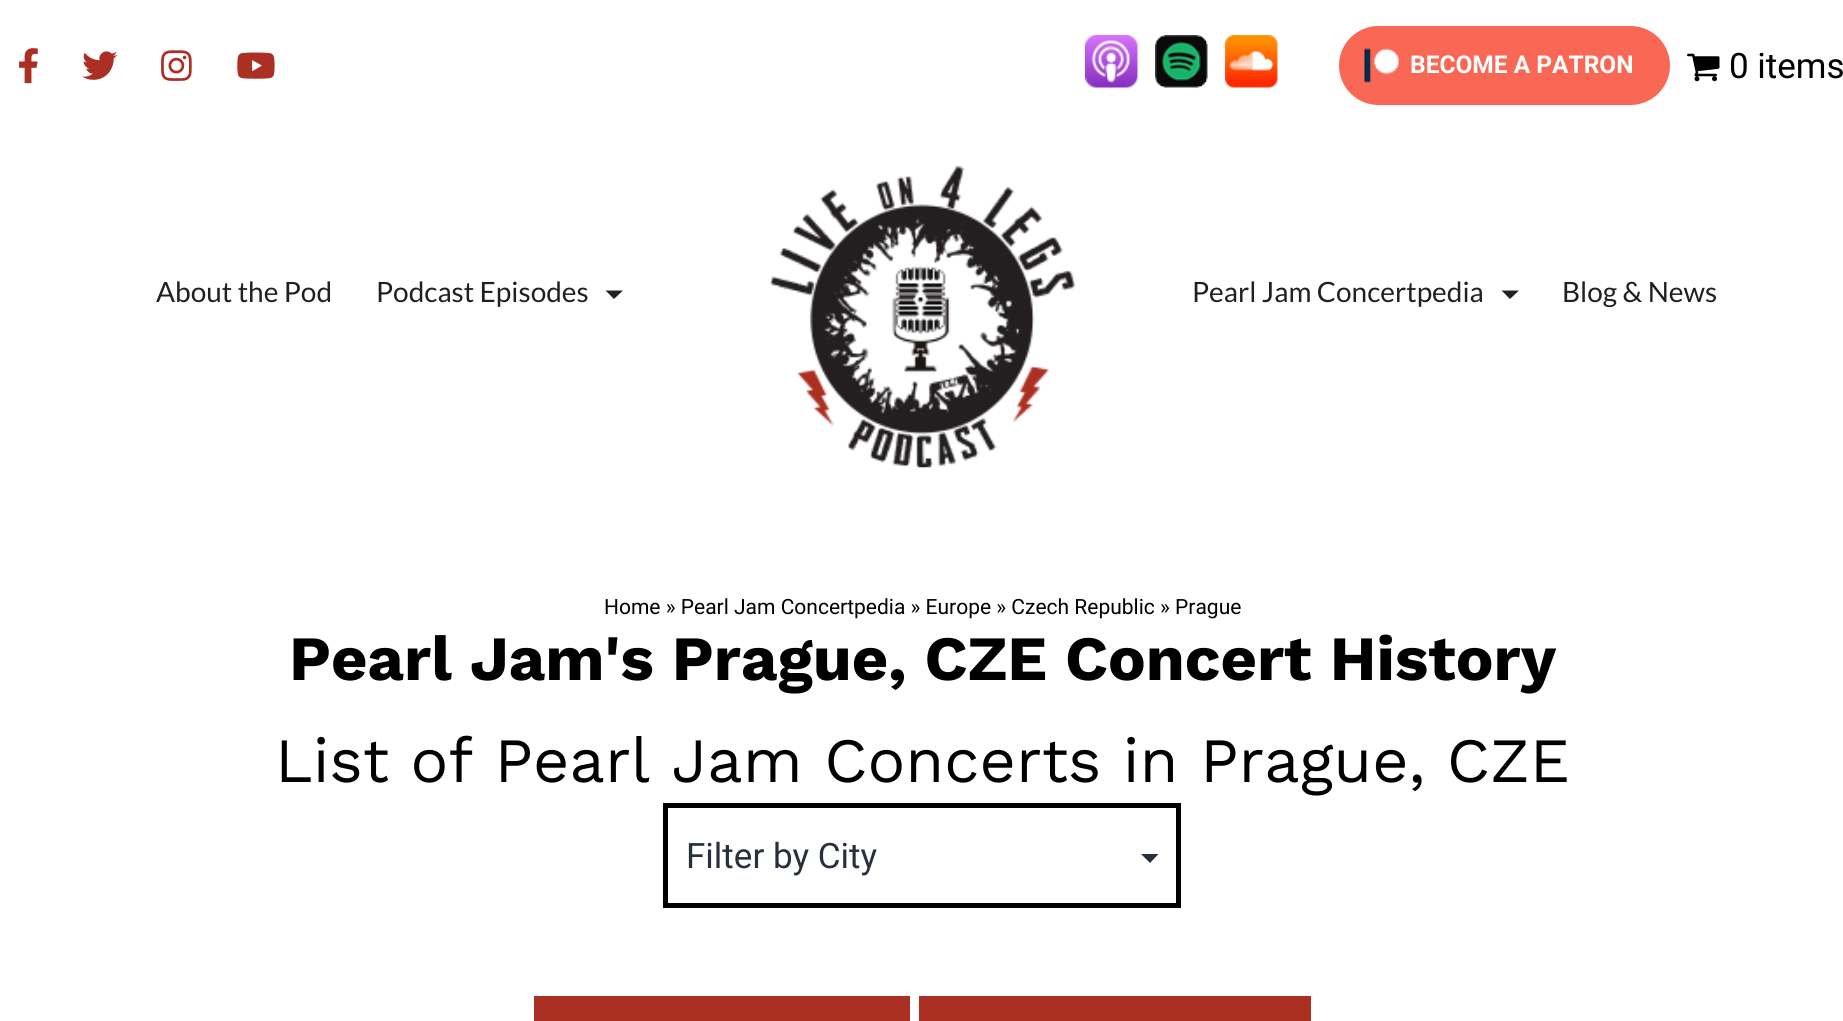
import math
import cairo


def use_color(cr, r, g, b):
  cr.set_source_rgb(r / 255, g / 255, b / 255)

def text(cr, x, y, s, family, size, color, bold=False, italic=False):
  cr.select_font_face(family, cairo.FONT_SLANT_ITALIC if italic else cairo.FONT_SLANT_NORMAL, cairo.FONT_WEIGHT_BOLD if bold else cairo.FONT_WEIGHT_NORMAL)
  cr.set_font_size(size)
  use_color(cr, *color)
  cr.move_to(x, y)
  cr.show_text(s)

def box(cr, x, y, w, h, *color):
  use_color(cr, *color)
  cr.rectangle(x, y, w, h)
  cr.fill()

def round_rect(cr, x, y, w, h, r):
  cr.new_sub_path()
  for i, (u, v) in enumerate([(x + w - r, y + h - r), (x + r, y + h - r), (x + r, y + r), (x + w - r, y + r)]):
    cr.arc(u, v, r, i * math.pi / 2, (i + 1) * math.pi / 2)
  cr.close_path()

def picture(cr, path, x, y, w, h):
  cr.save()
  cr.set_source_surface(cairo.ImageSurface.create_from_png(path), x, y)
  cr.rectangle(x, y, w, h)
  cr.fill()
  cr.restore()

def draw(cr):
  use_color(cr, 255, 255, 255)
  cr.paint()
  picture(cr, "img_01.png", 19, 48, 19, 36)
  picture(cr, "img_02.png", 82, 51, 36, 29)
  picture(cr, "img_03.png", 161, 50, 31, 31)
  picture(cr, "img_04.png", 237, 52, 38, 27)
  picture(cr, "img_05.png", 1085, 35, 53, 53)
  picture(cr, "img_06.png", 1155, 35, 53, 53)
  picture(cr, "img_07.png", 1225, 35, 53, 53)
  use_color(cr, 249, 104, 85)
  round_rect(cr, 1340, 27, 329, 77, 38.5)
  cr.fill_preserve()
  cr.stroke()
  picture(cr, "img_08.png", 1364, 48, 35, 35)
  picture(cr, "img_09.png", 1687, 53, 33, 29)
  use_color(cr, 35, 31, 32)
  cr.new_path()
  cr.move_to(605.5, 290.5)
  cr.line_to(623, 290.5)
  cr.line_to(614, 299)
  cr.close_path()
  cr.fill()
  picture(cr, "img_10.png", 770, 166, 305, 302)
  cr.new_path()
  cr.move_to(1501.5, 290.5)
  cr.line_to(1519, 290.5)
  cr.line_to(1510, 299)
  cr.close_path()
  cr.fill()
  use_color(cr, 40, 48, 61)
  cr.new_path()
  cr.move_to(1141, 854)
  cr.line_to(1158.5, 854)
  cr.line_to(1150, 863)
  cr.close_path()
  cr.fill()
  cr.rectangle(665.5, 805.5, 513, 100)
  use_color(cr, 0, 0, 0)
  cr.set_line_width(5)
  cr.stroke()
  box(cr, 534, 996, 376, 25, 171, 48, 35)
  box(cr, 919, 996, 392, 25, 171, 48, 35)
  text(cr, 1410, 73, "BECOME A PATRON", "Roboto", 24.5, (255, 255, 255), bold=True)
  text(cr, 1729, 78, "0 items", "Roboto", 35, (0, 0, 0))
  text(cr, 156, 302, "About the Pod", "Lato", 28, (35, 31, 32))
  text(cr, 376, 302, "Podcast Episodes", "Lato", 28, (35, 31, 32))
  text(cr, 1192, 302, "Pearl Jam Concertpedia", "Lato", 28, (35, 31, 32))
  text(cr, 1562, 302, "Blog & News", "Lato", 28, (35, 31, 32))
  text(cr, 604, 614, "Home » Pearl Jam Concertpedia » Europe » Czech Republic » Prague", "Roboto", 21, (0, 0, 0))
  text(cr, 289, 680, "Pearl Jam's Prague, CZE Concert History", "Work Sans", 63, (0, 0, 0), bold=True)
  text(cr, 275, 782, "List of Pearl Jam Concerts in Prague, CZE", "Work Sans", 63, (0, 0, 0))
  text(cr, 686, 868, "Filter by City", "Roboto", 35, (40, 48, 61))


surface = cairo.ImageSurface(cairo.FORMAT_RGB24, 1843, 1021)
cr = cairo.Context(surface)
options = cairo.FontOptions()
options.set_hint_metrics(cairo.HINT_METRICS_OFF)
options.set_hint_style(cairo.HINT_STYLE_NONE)
cr.set_font_options(options)
cr.set_miter_limit(4)
draw(cr)
surface.write_to_png("out.png")
